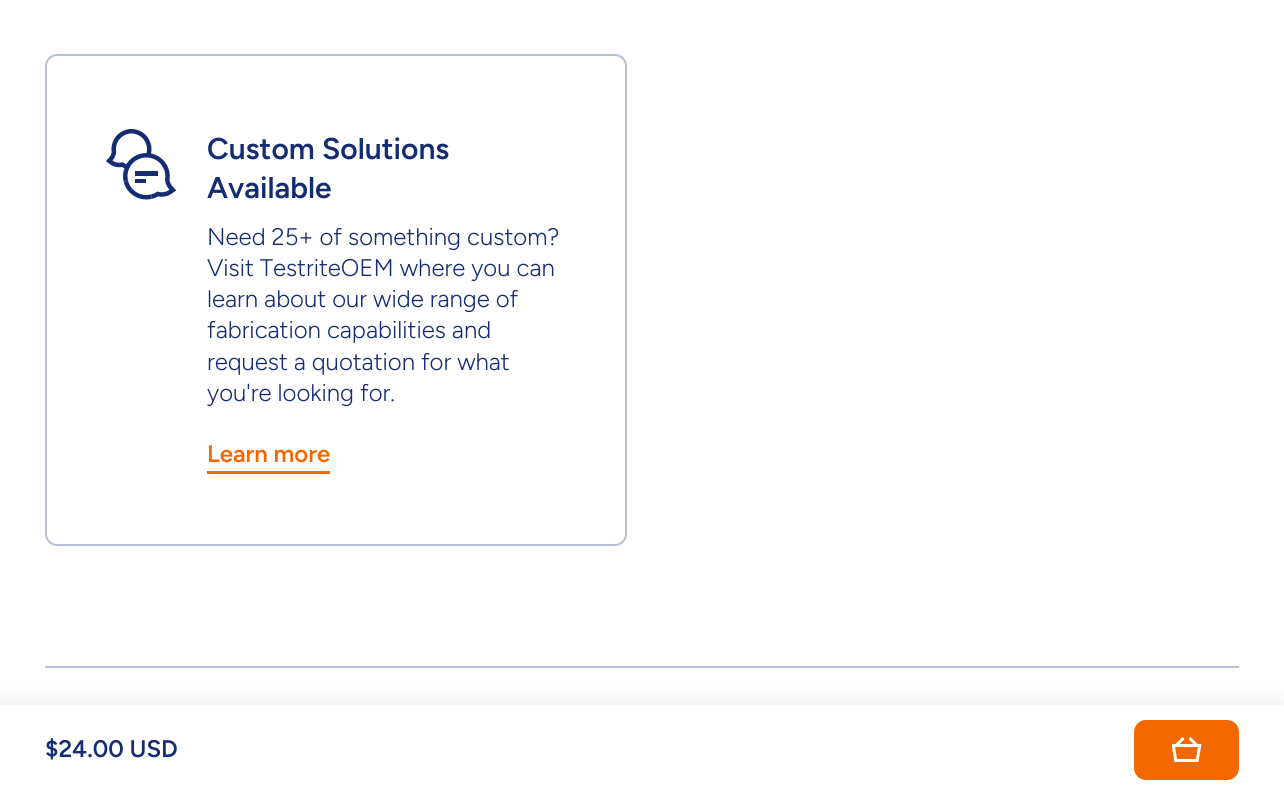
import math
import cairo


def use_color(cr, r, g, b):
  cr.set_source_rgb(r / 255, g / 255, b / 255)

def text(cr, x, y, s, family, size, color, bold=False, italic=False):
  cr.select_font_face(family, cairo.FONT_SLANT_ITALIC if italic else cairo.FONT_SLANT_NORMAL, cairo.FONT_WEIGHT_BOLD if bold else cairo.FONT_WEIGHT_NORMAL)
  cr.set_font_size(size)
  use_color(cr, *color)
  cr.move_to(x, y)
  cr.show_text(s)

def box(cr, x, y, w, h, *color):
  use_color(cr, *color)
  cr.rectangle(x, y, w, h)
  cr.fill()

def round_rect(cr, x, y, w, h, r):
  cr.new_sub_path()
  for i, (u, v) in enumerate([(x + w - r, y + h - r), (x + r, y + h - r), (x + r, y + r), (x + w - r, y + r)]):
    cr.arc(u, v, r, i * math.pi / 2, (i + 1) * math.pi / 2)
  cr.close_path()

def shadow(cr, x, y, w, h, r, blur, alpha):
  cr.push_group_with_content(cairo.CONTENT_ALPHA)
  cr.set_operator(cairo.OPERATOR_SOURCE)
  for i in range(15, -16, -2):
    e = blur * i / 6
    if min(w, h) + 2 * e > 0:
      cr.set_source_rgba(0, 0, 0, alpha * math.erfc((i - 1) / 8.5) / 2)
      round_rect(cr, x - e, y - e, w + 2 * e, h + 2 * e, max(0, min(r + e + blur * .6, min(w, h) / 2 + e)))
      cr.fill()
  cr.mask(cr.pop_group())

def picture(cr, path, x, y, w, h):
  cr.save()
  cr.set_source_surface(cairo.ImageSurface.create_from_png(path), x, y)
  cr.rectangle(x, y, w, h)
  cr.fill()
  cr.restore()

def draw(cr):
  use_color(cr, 255, 255, 255)
  cr.paint()
  picture(cr, "img_01.png", 105, 129, 72, 71)
  round_rect(cr, 46, 55, 580, 490, 11)
  use_color(cr, 185, 192, 213)
  cr.stroke()
  box(cr, 207, 471, 123, 3, 244, 104, 0)
  box(cr, 45, 666, 1194, 2, 185, 192, 213)
  use_color(cr, 22, 19, 69)
  shadow(cr, 0, 711, 1284, 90, 0, 15, 0.13)
  box(cr, 0, 705, 1284, 89, 255, 255, 255)
  use_color(cr, 244, 104, 0)
  round_rect(cr, 1134, 720, 105, 60, 12)
  cr.fill()
  picture(cr, "img_02.png", 1172, 737, 30, 25)
  text(cr, 207, 159, "Custom Solutions", "Figtree SemiBold", 30, (20, 44, 115))
  text(cr, 207, 198, "Available", "Figtree SemiBold", 30, (20, 44, 115))
  text(cr, 207, 245, "Need 25+ of something custom?", "Figtree Light", 24, (20, 44, 115))
  text(cr, 207, 276, "Visit TestriteOEM where you can", "Figtree Light", 24, (20, 44, 115))
  text(cr, 207, 307, "learn about our wide range of", "Figtree Light", 24, (20, 44, 115))
  text(cr, 207, 338, "fabrication capabilities and", "Figtree Light", 24, (20, 44, 115))
  text(cr, 207, 370, "request a quotation for what", "Figtree Light", 24, (20, 44, 115))
  text(cr, 207, 401, "you're looking for.", "Figtree Light", 24, (20, 44, 115))
  text(cr, 207, 462, "Learn more", "Figtree SemiBold", 24, (244, 104, 0))
  text(cr, 45, 757, "$24.00 USD", "Figtree SemiBold", 24, (20, 44, 115))


surface = cairo.ImageSurface(cairo.FORMAT_RGB24, 1284, 794)
cr = cairo.Context(surface)
options = cairo.FontOptions()
options.set_hint_metrics(cairo.HINT_METRICS_OFF)
options.set_hint_style(cairo.HINT_STYLE_NONE)
cr.set_font_options(options)
cr.set_miter_limit(4)
draw(cr)
surface.write_to_png("out.png")
